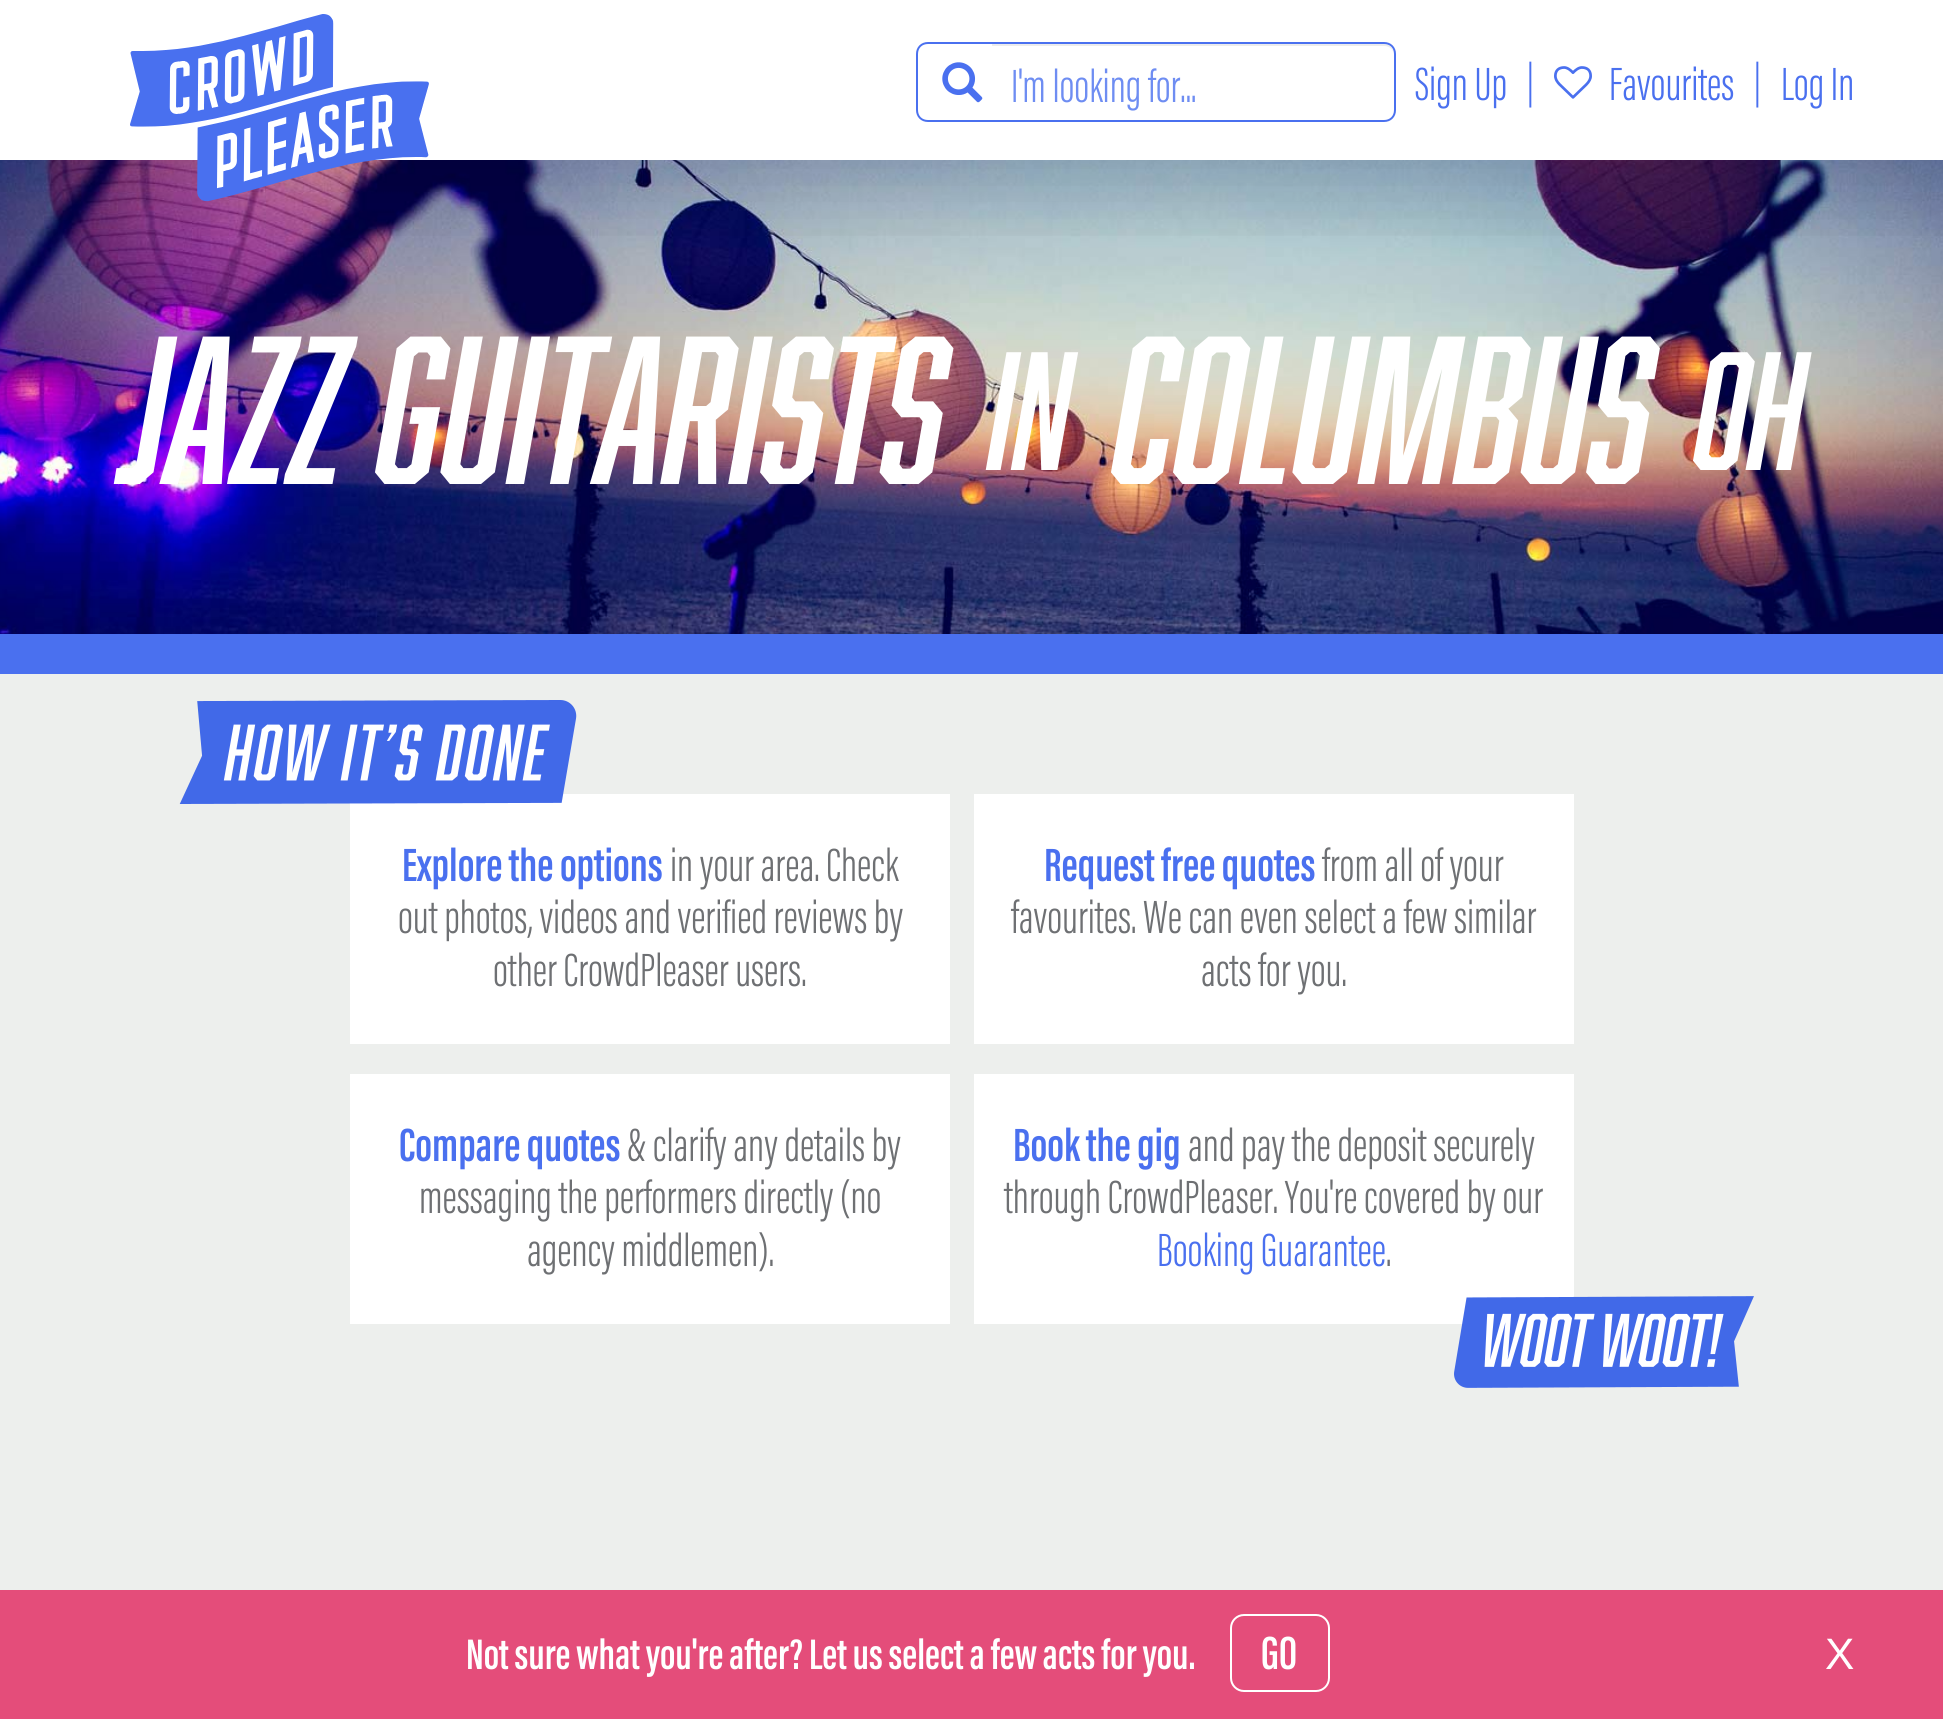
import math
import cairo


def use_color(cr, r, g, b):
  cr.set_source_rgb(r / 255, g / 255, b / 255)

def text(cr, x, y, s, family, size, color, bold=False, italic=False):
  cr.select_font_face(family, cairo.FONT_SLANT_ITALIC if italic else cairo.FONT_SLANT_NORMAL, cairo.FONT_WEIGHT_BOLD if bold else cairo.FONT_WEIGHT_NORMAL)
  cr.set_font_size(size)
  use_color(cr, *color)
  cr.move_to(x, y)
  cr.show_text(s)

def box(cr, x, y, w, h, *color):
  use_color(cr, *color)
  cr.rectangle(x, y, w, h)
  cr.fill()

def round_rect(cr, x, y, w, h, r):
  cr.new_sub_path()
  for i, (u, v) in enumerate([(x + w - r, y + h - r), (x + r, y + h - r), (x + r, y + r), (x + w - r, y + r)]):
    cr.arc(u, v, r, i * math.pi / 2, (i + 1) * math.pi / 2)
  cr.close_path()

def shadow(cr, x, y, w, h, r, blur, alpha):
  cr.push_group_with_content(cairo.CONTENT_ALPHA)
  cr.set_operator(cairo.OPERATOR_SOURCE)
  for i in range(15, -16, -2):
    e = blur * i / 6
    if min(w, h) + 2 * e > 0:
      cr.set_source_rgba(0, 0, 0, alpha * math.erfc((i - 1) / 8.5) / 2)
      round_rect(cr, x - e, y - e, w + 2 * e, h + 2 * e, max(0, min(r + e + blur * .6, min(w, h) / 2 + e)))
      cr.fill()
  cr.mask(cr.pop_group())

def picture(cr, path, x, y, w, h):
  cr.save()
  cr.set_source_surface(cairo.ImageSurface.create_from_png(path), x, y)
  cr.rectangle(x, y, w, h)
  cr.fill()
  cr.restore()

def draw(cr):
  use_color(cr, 255, 255, 255)
  cr.paint()
  picture(cr, "img_04.png", 0, 160, 1943, 474)
  cr.save()
  cr.rectangle(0, 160, 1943, 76)
  cr.clip()
  use_color(cr, 0, 0, 0)
  shadow(cr, 0, 34, 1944, 160, 0, 50, 0.1)
  cr.restore()
  picture(cr, "img_01.png", 130, 14, 299, 188)
  use_color(cr, 74, 112, 239)
  cr.set_fill_rule(cairo.FILL_RULE_EVEN_ODD)
  cr.new_path()
  cr.move_to(928, 42)
  cr.line_to(992, 42)
  cr.line_to(992, 122)
  cr.line_to(928, 122)
  cr.curve_to(921, 122, 916, 117, 916, 110)
  cr.line_to(916, 54)
  cr.curve_to(916, 47, 921, 42, 928, 42)
  cr.close_path()
  cr.move_to(928, 44)
  cr.line_to(992, 44)
  cr.line_to(992, 120)
  cr.line_to(928, 120)
  cr.curve_to(922, 120, 918, 116, 918, 110)
  cr.line_to(918, 54)
  cr.curve_to(918, 48, 922, 44, 928, 44)
  cr.close_path()
  cr.fill()
  picture(cr, "img_02.png", 942, 62, 41, 41)
  use_color(cr, 236, 236, 236)
  cr.set_fill_rule(cairo.FILL_RULE_WINDING)
  cr.new_path()
  cr.move_to(992, 46)
  cr.line_to(1384, 46)
  cr.curve_to(1390, 46, 1394, 50, 1394, 56)
  cr.curve_to(1394, 50, 1391, 44, 1384, 44)
  cr.line_to(992, 44)
  cr.close_path()
  cr.fill()
  use_color(cr, 74, 112, 239)
  cr.set_fill_rule(cairo.FILL_RULE_EVEN_ODD)
  cr.new_path()
  cr.move_to(992, 42)
  cr.line_to(1384, 42)
  cr.curve_to(1391, 42, 1396, 47, 1396, 54)
  cr.line_to(1396, 110)
  cr.curve_to(1396, 117, 1391, 122, 1384, 122)
  cr.line_to(992, 122)
  cr.close_path()
  cr.move_to(992, 44)
  cr.line_to(1384, 44)
  cr.curve_to(1390, 44, 1394, 48, 1394, 54)
  cr.line_to(1394, 110)
  cr.curve_to(1394, 116, 1390, 120, 1384, 120)
  cr.line_to(992, 120)
  cr.close_path()
  cr.fill()
  picture(cr, "img_03.png", 1554, 66, 38, 33)
  box(cr, 0, 634, 1943, 40, 74, 112, 239)
  box(cr, 0, 674, 1943, 916, 237, 239, 237)
  box(cr, 350, 794, 600, 250, 255, 255, 255)
  picture(cr, "img_05.png", 179, 700, 398, 104)
  box(cr, 974, 794, 600, 250, 255, 255, 255)
  box(cr, 350, 1074, 600, 250, 255, 255, 255)
  box(cr, 974, 1074, 600, 250, 255, 255, 255)
  picture(cr, "img_06.png", 1454, 1296, 300, 92)
  box(cr, 0, 1590, 1943, 129, 228, 77, 122)
  round_rect(cr, 1231, 1615, 98, 76, 13)
  use_color(cr, 255, 255, 255)
  cr.stroke()
  text(cr, 1011, 102, "I'm looking for...", "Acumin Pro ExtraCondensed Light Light", 48, (110, 141, 242))
  text(cr, 1415, 100, "Sign Up", "Acumin Pro ExtraCondensed Light Light", 48, (74, 112, 239))
  text(cr, 1527, 96, "|", "Acumin Pro ExtraCondensed Light Light", 44, (74, 112, 239))
  text(cr, 1609, 100, "Favourites", "Acumin Pro ExtraCondensed Light Light", 48, (74, 112, 239))
  text(cr, 1754, 96, "|", "Acumin Pro ExtraCondensed Light Light", 44, (74, 112, 239))
  text(cr, 1781, 100, "Log In", "Acumin Pro ExtraCondensed Light Light", 48, (74, 112, 239))
  text(cr, 125, 484, "Jazz Guitarists", "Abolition", 194, (255, 255, 255), italic=True)
  text(cr, 991, 470, "in", "Abolition", 155, (255, 255, 255), italic=True)
  text(cr, 1116, 484, "Columbus", "Abolition", 194, (255, 255, 255), italic=True)
  text(cr, 1697, 470, "OH", "Abolition", 155, (255, 255, 255), italic=True)
  text(cr, 402, 881, "Explore the options", "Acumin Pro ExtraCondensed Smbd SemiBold", 48, (74, 112, 239))
  text(cr, 670, 881, "in your area. Check", "Acumin Pro ExtraCondensed Light Light", 48, (110, 112, 115))
  text(cr, 398, 933, "out photos, videos and verified reviews by", "Acumin Pro ExtraCondensed Light Light", 48, (110, 112, 115))
  text(cr, 493, 986, "other CrowdPleaser users.", "Acumin Pro ExtraCondensed Light Light", 48, (110, 112, 115))
  text(cr, 1044, 881, "Request free quotes", "Acumin Pro ExtraCondensed Smbd SemiBold", 48, (74, 112, 239))
  text(cr, 1322, 881, "from all of your", "Acumin Pro ExtraCondensed Light Light", 48, (110, 112, 115))
  text(cr, 1011, 933, "favourites. We can even select a few similar", "Acumin Pro ExtraCondensed Light Light", 48, (110, 112, 115))
  text(cr, 1201, 986, "acts for you.", "Acumin Pro ExtraCondensed Light Light", 48, (110, 112, 115))
  text(cr, 399, 1161, "Compare quotes", "Acumin Pro ExtraCondensed Smbd SemiBold", 48, (74, 112, 239))
  text(cr, 627, 1161, "& clarify any details by", "Acumin Pro ExtraCondensed Light Light", 48, (110, 112, 115))
  text(cr, 419, 1213, "messaging the performers directly (no", "Acumin Pro ExtraCondensed Light Light", 48, (110, 112, 115))
  text(cr, 527, 1266, "agency middlemen).", "Acumin Pro ExtraCondensed Light Light", 48, (110, 112, 115))
  text(cr, 1013, 1161, "Book the gig", "Acumin Pro ExtraCondensed Smbd SemiBold", 48, (74, 112, 239))
  text(cr, 1188, 1161, "and pay the deposit securely", "Acumin Pro ExtraCondensed Light Light", 48, (110, 112, 115))
  text(cr, 1004, 1213, "through CrowdPleaser. You're covered by our", "Acumin Pro ExtraCondensed Light Light", 48, (110, 112, 115))
  text(cr, 1157, 1266, "Booking Guarantee", "Acumin Pro ExtraCondensed Light Light", 48, (74, 112, 239))
  text(cr, 1386, 1266, ".", "Acumin Pro ExtraCondensed Light Light", 48, (110, 112, 115))
  text(cr, 466, 1669, "Not sure what you're after? Let us select a few acts for you.", "Acumin Pro ExtraCondensed Smbd SemiBold", 44, (255, 255, 255))
  text(cr, 1261, 1669, "GO", "Acumin Pro ExtraCondensed Smbd SemiBold", 48, (255, 255, 255))
  text(cr, 1825, 1669, "X", "Liberation Sans", 44, (255, 255, 255))


surface = cairo.ImageSurface(cairo.FORMAT_RGB24, 1943, 1719)
cr = cairo.Context(surface)
options = cairo.FontOptions()
options.set_hint_metrics(cairo.HINT_METRICS_OFF)
options.set_hint_style(cairo.HINT_STYLE_NONE)
cr.set_font_options(options)
cr.set_miter_limit(4)
draw(cr)
surface.write_to_png("out.png")
